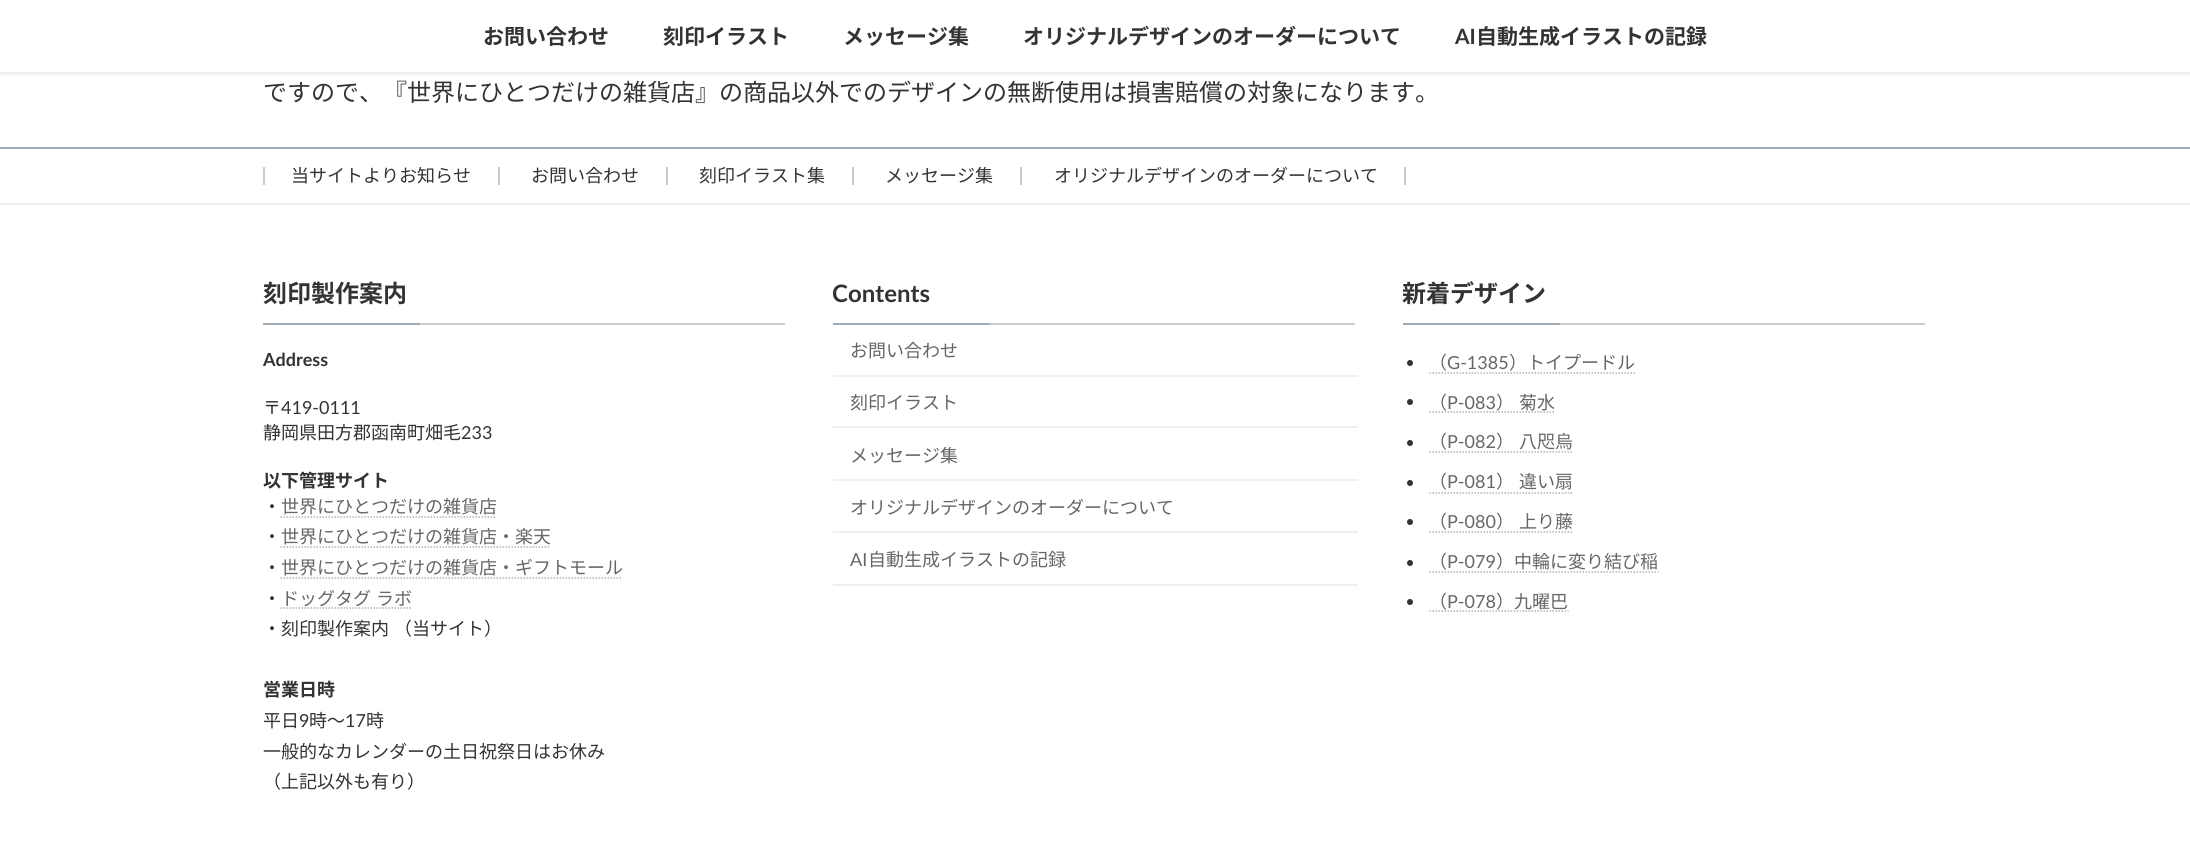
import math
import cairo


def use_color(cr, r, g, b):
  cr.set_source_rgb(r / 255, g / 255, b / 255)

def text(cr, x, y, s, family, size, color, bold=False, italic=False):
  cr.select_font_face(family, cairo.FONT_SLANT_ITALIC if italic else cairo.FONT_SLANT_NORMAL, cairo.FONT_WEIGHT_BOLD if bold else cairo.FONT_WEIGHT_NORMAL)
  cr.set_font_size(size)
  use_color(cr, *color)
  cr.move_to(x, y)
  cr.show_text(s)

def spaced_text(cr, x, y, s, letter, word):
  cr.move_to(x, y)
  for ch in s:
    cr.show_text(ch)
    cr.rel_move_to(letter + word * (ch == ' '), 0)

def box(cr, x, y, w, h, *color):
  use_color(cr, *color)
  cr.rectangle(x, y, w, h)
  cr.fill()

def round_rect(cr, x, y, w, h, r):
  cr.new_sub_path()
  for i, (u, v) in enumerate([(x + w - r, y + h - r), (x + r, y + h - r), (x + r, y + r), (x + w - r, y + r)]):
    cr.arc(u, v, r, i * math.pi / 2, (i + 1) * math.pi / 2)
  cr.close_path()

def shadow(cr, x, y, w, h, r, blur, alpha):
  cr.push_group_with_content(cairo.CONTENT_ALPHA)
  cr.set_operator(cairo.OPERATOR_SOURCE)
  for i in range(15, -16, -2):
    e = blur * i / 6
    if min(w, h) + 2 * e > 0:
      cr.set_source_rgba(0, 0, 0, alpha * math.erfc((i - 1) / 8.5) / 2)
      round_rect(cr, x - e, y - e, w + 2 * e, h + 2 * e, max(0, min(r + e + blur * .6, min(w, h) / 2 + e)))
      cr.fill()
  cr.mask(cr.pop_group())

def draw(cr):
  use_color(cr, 255, 255, 255)
  cr.paint()
  use_color(cr, 0, 0, 0)
  shadow(cr, 0, 2, 2190, 72, 0, 2, 0.1)
  box(cr, 0, 0, 2190, 72, 255, 255, 255)
  box(cr, 0, 147, 2190, 2, 159, 172, 181)
  box(cr, 0, 203, 2190, 2, 240, 240, 240)
  box(cr, 498, 167, 2, 18, 204, 204, 204)
  box(cr, 263, 167, 2, 18, 204, 204, 204)
  box(cr, 666, 167, 2, 18, 204, 204, 204)
  box(cr, 852, 167, 2, 18, 204, 204, 204)
  box(cr, 1020, 167, 2, 18, 204, 204, 204)
  box(cr, 1404, 167, 2, 18, 204, 204, 204)
  box(cr, 420, 323, 365, 2, 204, 204, 204)
  box(cr, 263, 323, 157, 2, 159, 172, 181)
  cr.new_path()
  cr.move_to(280.5, 517)
  cr.line_to(496.5, 517)
  use_color(cr, 179, 179, 179)
  cr.set_line_width(1.5)
  cr.set_dash([1.5, 1.5])
  cr.stroke()
  cr.new_path()
  cr.move_to(280.5, 547)
  cr.line_to(550.5, 547)
  cr.stroke()
  cr.new_path()
  cr.move_to(280.5, 578)
  cr.line_to(622.5, 578)
  cr.stroke()
  cr.new_path()
  cr.move_to(280.5, 608)
  cr.line_to(411, 608)
  cr.stroke()
  box(cr, 990, 323, 365, 2, 204, 204, 204)
  box(cr, 833, 323, 157, 2, 159, 172, 181)
  box(cr, 833, 375, 525, 2, 240, 240, 240)
  box(cr, 833, 426, 525, 2, 240, 240, 240)
  box(cr, 833, 479, 525, 2, 240, 240, 240)
  box(cr, 833, 531, 525, 2, 240, 240, 240)
  box(cr, 833, 584, 525, 2, 240, 240, 240)
  box(cr, 1560, 323, 365, 2, 204, 204, 204)
  box(cr, 1403, 323, 157, 2, 159, 172, 181)
  use_color(cr, 51, 51, 51)
  cr.arc(1410, 363, 3, 0, 2 * math.pi)
  cr.fill()
  cr.new_path()
  cr.move_to(1429.5, 373)
  cr.line_to(1635, 373)
  use_color(cr, 179, 179, 179)
  cr.stroke()
  use_color(cr, 51, 51, 51)
  cr.arc(1410, 402, 3, 0, 2 * math.pi)
  cr.fill()
  cr.new_path()
  cr.move_to(1429.5, 412)
  cr.line_to(1555, 412)
  use_color(cr, 179, 179, 179)
  cr.stroke()
  use_color(cr, 51, 51, 51)
  cr.arc(1410, 443, 3, 0, 2 * math.pi)
  cr.fill()
  cr.new_path()
  cr.move_to(1429.5, 452)
  cr.line_to(1573, 452)
  use_color(cr, 179, 179, 179)
  cr.stroke()
  use_color(cr, 51, 51, 51)
  cr.arc(1410, 483, 3, 0, 2 * math.pi)
  cr.fill()
  cr.new_path()
  cr.move_to(1429.5, 493)
  cr.line_to(1573, 493)
  use_color(cr, 179, 179, 179)
  cr.stroke()
  use_color(cr, 51, 51, 51)
  cr.arc(1410, 522, 3, 0, 2 * math.pi)
  cr.fill()
  cr.new_path()
  cr.move_to(1429.5, 532)
  cr.line_to(1573, 532)
  use_color(cr, 179, 179, 179)
  cr.stroke()
  use_color(cr, 51, 51, 51)
  cr.arc(1410, 563, 3, 0, 2 * math.pi)
  cr.fill()
  cr.new_path()
  cr.move_to(1429.5, 572)
  cr.line_to(1658.5, 572)
  use_color(cr, 179, 179, 179)
  cr.stroke()
  use_color(cr, 51, 51, 51)
  cr.arc(1410, 602, 3, 0, 2 * math.pi)
  cr.fill()
  cr.new_path()
  cr.move_to(1429.5, 611)
  cr.line_to(1568.5, 611)
  use_color(cr, 179, 179, 179)
  cr.stroke()
  text(cr, 483, 44, "お問い合わせ", "Noto Sans JP", 21, (51, 51, 51), bold=True)
  text(cr, 663, 44, "刻印イラスト", "Noto Sans JP", 21, (51, 51, 51), bold=True)
  text(cr, 843, 44, "メッセージ集", "Noto Sans JP", 21, (51, 51, 51), bold=True)
  text(cr, 1023, 44, "オリジナルデザインのオーダーについて", "Noto Sans JP", 21, (51, 51, 51), bold=True)
  text(cr, 1455, 44, "AI", "Lato", 21, (51, 51, 51), bold=True)
  text(cr, 1476, 44, "自動生成イラストの記録", "Noto Sans JP", 21, (51, 51, 51), bold=True)
  text(cr, 263, 101, "ですので、『世界にひとつだけの雑貨店』の商品以外でのデザインの無断使用は損害賠償の対象になります。", "Noto Sans JP", 24, (51, 51, 51))
  text(cr, 291, 182, "当サイトよりお知らせ", "Noto Sans JP", 18, (51, 51, 51))
  text(cr, 531, 182, "お問い合わせ", "Noto Sans JP", 18, (51, 51, 51))
  text(cr, 699, 182, "刻印イラスト集", "Noto Sans JP", 18, (51, 51, 51))
  text(cr, 885, 182, "メッセージ集", "Noto Sans JP", 18, (51, 51, 51))
  text(cr, 1054, 182, "オリジナルデザインのオーダーについて", "Noto Sans JP", 18, (51, 51, 51))
  text(cr, 263, 302, "刻印製作案内", "Noto Sans JP", 24, (51, 51, 51), bold=True)
  text(cr, 263, 366, "Address", "Lato", 18, (51, 51, 51), bold=True)
  text(cr, 263, 414, "〒", "Noto Sans JP", 18, (51, 51, 51))
  text(cr, 281, 414, "419-0111", "Lato", 18, (51, 51, 51))
  text(cr, 263, 439, "静岡県田方郡函南町畑毛", "Noto Sans JP", 18, (51, 51, 51))
  text(cr, 461, 439, "233", "Lato", 18, (51, 51, 51))
  text(cr, 263, 487, "以下管理サイト", "Noto Sans JP", 18, (51, 51, 51), bold=True)
  text(cr, 263, 513, "・", "Noto Sans JP", 18, (51, 51, 51))
  text(cr, 281, 513, "世界にひとつだけの雑貨店", "Noto Sans JP", 18, (102, 102, 102))
  text(cr, 263, 543, "・", "Noto Sans JP", 18, (51, 51, 51))
  text(cr, 281, 543, "世界にひとつだけの雑貨店・楽天", "Noto Sans JP", 18, (102, 102, 102))
  text(cr, 263, 574, "・", "Noto Sans JP", 18, (51, 51, 51))
  text(cr, 281, 574, "世界にひとつだけの雑貨店・ギフトモール", "Noto Sans JP", 18, (102, 102, 102))
  text(cr, 263, 605, "・", "Noto Sans JP", 18, (51, 51, 51))
  use_color(cr, 102, 102, 102)
  spaced_text(cr, 281, 605, "ドッグタグ ラボ", 0, 1)
  use_color(cr, 51, 51, 51)
  spaced_text(cr, 263, 635, "・刻印製作案内 （当サイト）", 0, 1)
  text(cr, 263, 696, "営業日時", "Noto Sans JP", 18, (51, 51, 51), bold=True)
  text(cr, 263, 727, "平日", "Noto Sans JP", 18, (51, 51, 51))
  text(cr, 299, 727, "9", "Lato", 18, (51, 51, 51))
  text(cr, 309, 727, "時～", "Noto Sans JP", 18, (51, 51, 51))
  text(cr, 345, 727, "17", "Lato", 18, (51, 51, 51))
  text(cr, 366, 727, "時", "Noto Sans JP", 18, (51, 51, 51))
  text(cr, 263, 758, "一般的なカレンダーの土日祝祭日はお休み", "Noto Sans JP", 18, (51, 51, 51))
  text(cr, 263, 788, "（上記以外も有り）", "Noto Sans JP", 18, (51, 51, 51))
  text(cr, 832, 302, "Contents", "Lato", 24, (51, 51, 51), bold=True)
  text(cr, 850, 357, "お問い合わせ", "Noto Sans JP", 18, (102, 102, 102))
  text(cr, 850, 409, "刻印イラスト", "Noto Sans JP", 18, (102, 102, 102))
  text(cr, 850, 462, "メッセージ集", "Noto Sans JP", 18, (102, 102, 102))
  text(cr, 850, 514, "オリジナルデザインのオーダーについて", "Noto Sans JP", 18, (102, 102, 102))
  text(cr, 850, 566, "AI", "Lato", 18, (102, 102, 102))
  text(cr, 868, 566, "自動生成イラストの記録", "Noto Sans JP", 18, (102, 102, 102))
  text(cr, 1402, 302, "新着デザイン", "Noto Sans JP", 24, (51, 51, 51), bold=True)
  text(cr, 1429, 369, "（", "Noto Sans JP", 18, (102, 102, 102))
  text(cr, 1447, 369, "G-1385", "Lato", 18, (102, 102, 102))
  text(cr, 1509, 369, "）トイプードル", "Noto Sans JP", 18, (102, 102, 102))
  text(cr, 1429, 409, "（", "Noto Sans JP", 18, (102, 102, 102))
  text(cr, 1447, 409, "P-083", "Lato", 18, (102, 102, 102))
  cr.select_font_face("Noto Sans JP")
  spaced_text(cr, 1496, 409, "） 菊水", 0, 1)
  text(cr, 1429, 448, "（", "Noto Sans JP", 18, (102, 102, 102))
  text(cr, 1447, 448, "P-082", "Lato", 18, (102, 102, 102))
  cr.select_font_face("Noto Sans JP")
  spaced_text(cr, 1496, 448, "） 八咫烏", 0, 1)
  text(cr, 1429, 488, "（", "Noto Sans JP", 18, (102, 102, 102))
  text(cr, 1447, 488, "P-081", "Lato", 18, (102, 102, 102))
  cr.select_font_face("Noto Sans JP")
  spaced_text(cr, 1496, 488, "） 違い扇", 0, 1)
  text(cr, 1429, 528, "（", "Noto Sans JP", 18, (102, 102, 102))
  text(cr, 1447, 528, "P-080", "Lato", 18, (102, 102, 102))
  cr.select_font_face("Noto Sans JP")
  spaced_text(cr, 1496, 528, "） 上り藤", 0, 1)
  text(cr, 1429, 568, "（", "Noto Sans JP", 18, (102, 102, 102))
  text(cr, 1447, 568, "P-079", "Lato", 18, (102, 102, 102))
  text(cr, 1496, 568, "）中輪に変り結び稲", "Noto Sans JP", 18, (102, 102, 102))
  text(cr, 1429, 608, "（", "Noto Sans JP", 18, (102, 102, 102))
  text(cr, 1447, 608, "P-078", "Lato", 18, (102, 102, 102))
  text(cr, 1496, 608, "）九曜巴", "Noto Sans JP", 18, (102, 102, 102))


surface = cairo.ImageSurface(cairo.FORMAT_RGB24, 2190, 858)
cr = cairo.Context(surface)
options = cairo.FontOptions()
options.set_hint_metrics(cairo.HINT_METRICS_OFF)
options.set_hint_style(cairo.HINT_STYLE_NONE)
cr.set_font_options(options)
cr.set_miter_limit(4)
draw(cr)
surface.write_to_png("out.png")
